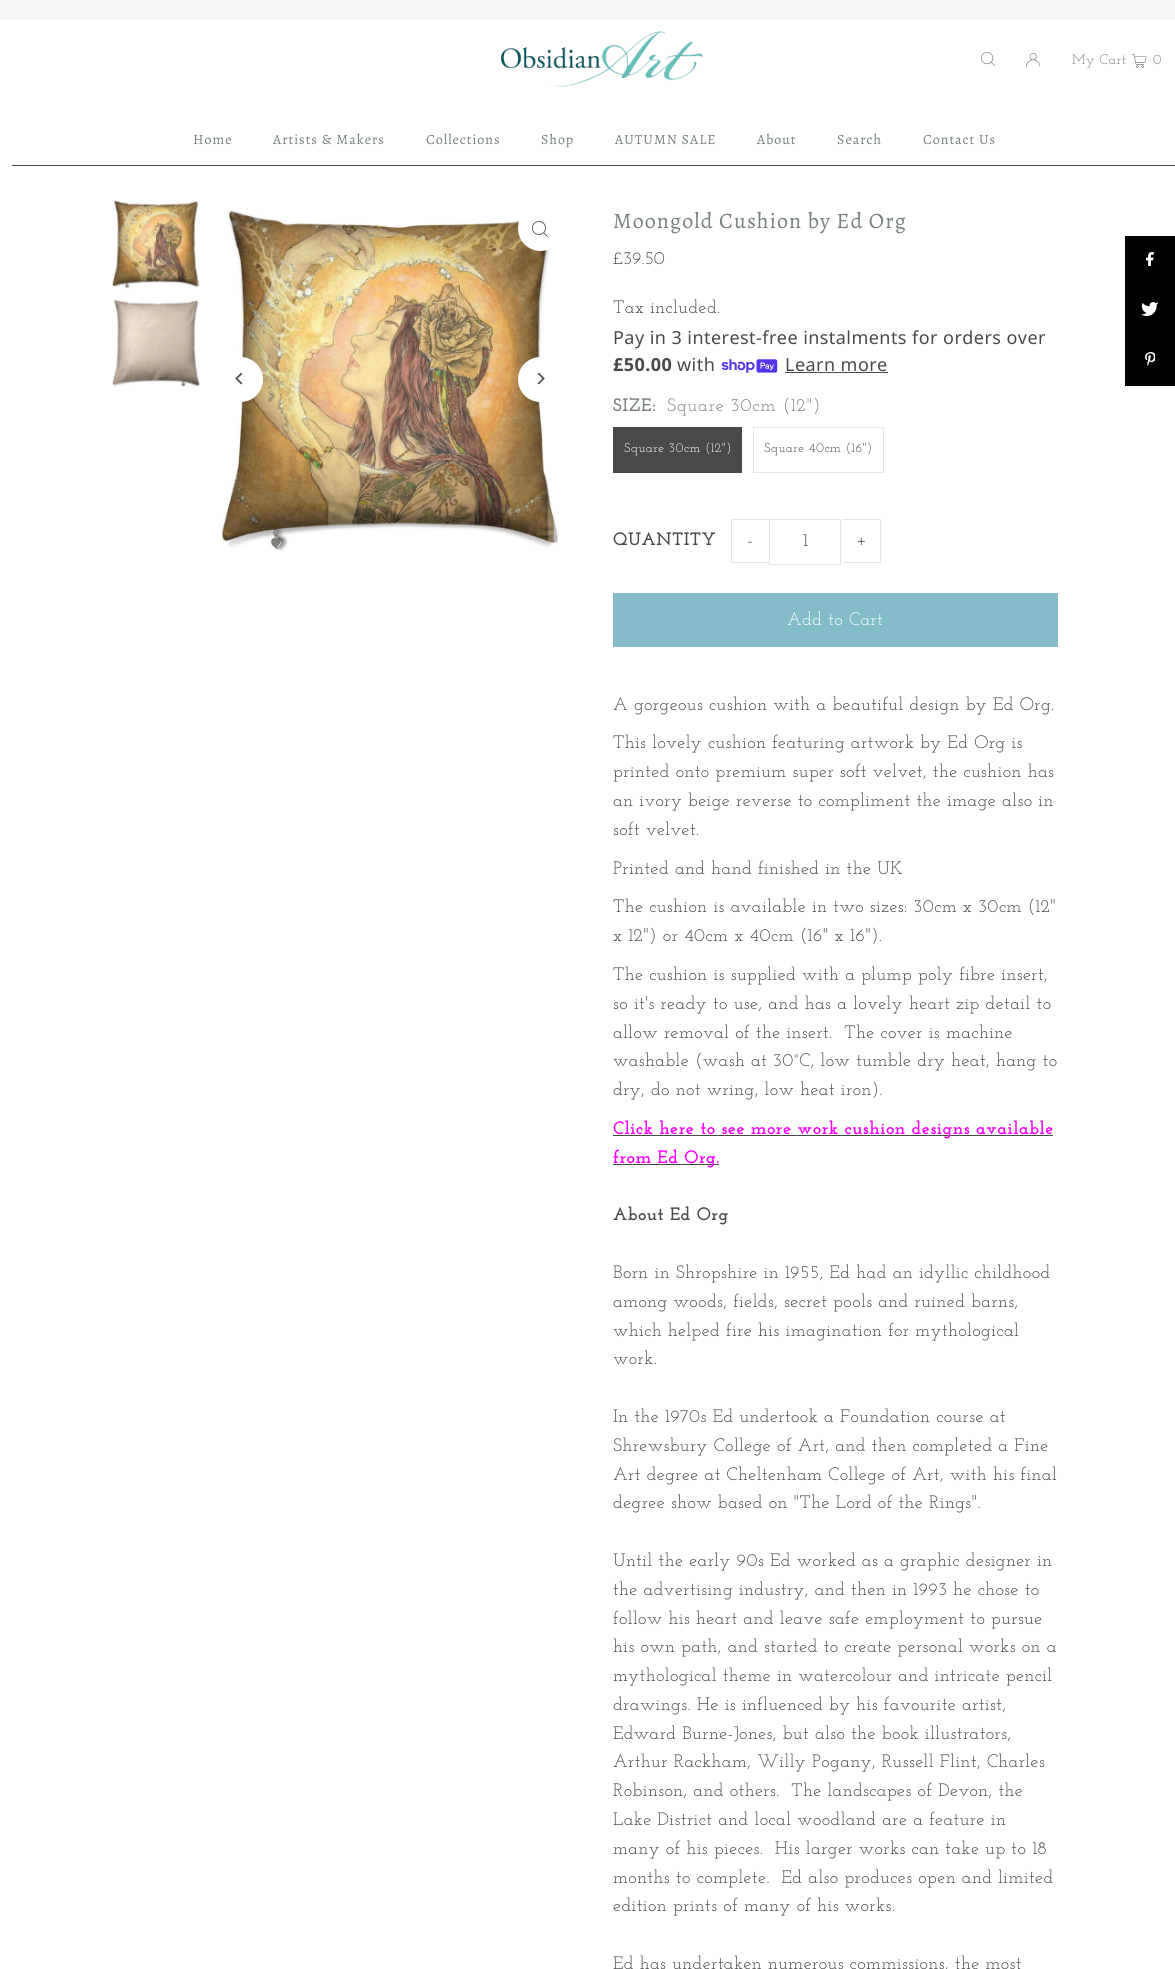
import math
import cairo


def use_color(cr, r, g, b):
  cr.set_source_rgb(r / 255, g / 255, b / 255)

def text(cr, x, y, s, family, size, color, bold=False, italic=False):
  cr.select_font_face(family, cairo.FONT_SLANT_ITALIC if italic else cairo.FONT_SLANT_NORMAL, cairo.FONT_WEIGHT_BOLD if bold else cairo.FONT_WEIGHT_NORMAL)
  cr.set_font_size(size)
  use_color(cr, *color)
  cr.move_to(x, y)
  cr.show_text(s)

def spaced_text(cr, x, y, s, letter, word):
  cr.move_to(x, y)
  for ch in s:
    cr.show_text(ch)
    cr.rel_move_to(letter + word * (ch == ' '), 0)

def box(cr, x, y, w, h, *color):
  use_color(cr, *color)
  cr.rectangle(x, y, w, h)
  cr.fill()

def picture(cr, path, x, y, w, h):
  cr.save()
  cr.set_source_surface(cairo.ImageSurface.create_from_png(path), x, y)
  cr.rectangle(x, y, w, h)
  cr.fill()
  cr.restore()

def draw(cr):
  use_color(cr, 255, 255, 255)
  cr.paint()
  box(cr, 0, 0, 1175, 20, 246, 246, 246)
  box(cr, 12, 165, 1163, 1, 72, 74, 74)
  picture(cr, "img_01.png", 501, 31, 202, 56)
  picture(cr, "img_02.png", 981, 52, 14, 14)
  picture(cr, "img_03.png", 1026, 53, 14, 14)
  picture(cr, "img_04.png", 1132, 54, 15, 14)
  picture(cr, "img_05.png", 112, 200, 88, 89)
  picture(cr, "img_06.png", 112, 299, 88, 88)
  picture(cr, "img_08.png", 221, 210, 338, 342)
  use_color(cr, 255, 255, 255)
  cr.arc(540.5, 228.5, 22.5, 0, 2 * math.pi)
  cr.fill()
  picture(cr, "img_07.png", 532, 221, 16, 16)
  cr.arc(240.5, 379.5, 22.5, 0, 2 * math.pi)
  cr.fill()
  picture(cr, "img_09.png", 235, 373, 8, 12)
  cr.arc(540.5, 379.5, 22.5, 0, 2 * math.pi)
  cr.fill()
  picture(cr, "img_10.png", 537, 373, 8, 12)
  picture(cr, "img_11.png", 721, 359, 57, 14)
  box(cr, 785, 372, 103, 1, 72, 74, 74)
  box(cr, 613, 427, 129, 46, 72, 74, 74)
  cr.rectangle(753.5, 427.5, 130, 45)
  use_color(cr, 229, 229, 229)
  cr.set_line_width(1)
  cr.stroke()
  box(cr, 731, 519, 38, 1, 229, 229, 229)
  box(cr, 731, 562, 38, 1, 229, 229, 229)
  box(cr, 731, 519, 1, 44, 229, 229, 229)
  cr.rectangle(769.5, 519.5, 71, 45)
  cr.stroke()
  box(cr, 843, 519, 38, 1, 229, 229, 229)
  box(cr, 880, 519, 1, 44, 229, 229, 229)
  box(cr, 843, 562, 38, 1, 229, 229, 229)
  box(cr, 613, 593, 445, 54, 132, 188, 201)
  box(cr, 613, 1135, 440, 1, 72, 74, 74)
  box(cr, 613, 1164, 106, 1, 72, 74, 74)
  box(cr, 1125, 236, 50, 150, 0, 0, 0)
  picture(cr, "img_12.png", 1146, 252, 8, 14)
  picture(cr, "img_13.png", 1141, 302, 17, 14)
  picture(cr, "img_14.png", 1145, 352, 10, 14)
  cr.select_font_face("Josefin Slab")
  cr.set_font_size(14)
  use_color(cr, 118, 127, 129)
  spaced_text(cr, 1072, 64, "My Cart", 0.45, 0)
  spaced_text(cr, 1153, 64, "0", 0.45, 0)
  cr.select_font_face("Alegreya")
  spaced_text(cr, 193, 144, "Home", 1, 0)
  spaced_text(cr, 273, 144, "Artists & Makers", 1, 0)
  spaced_text(cr, 426, 144, "Collections", 1, 0)
  spaced_text(cr, 541, 144, "Shop", 1, 0)
  spaced_text(cr, 615, 144, "AUTUMN SALE", 1, 0)
  spaced_text(cr, 757, 144, "About", 1, 0)
  spaced_text(cr, 837, 144, "Search", 1, 0)
  spaced_text(cr, 923, 144, "Contact Us", 1, 0)
  cr.set_font_size(22)
  spaced_text(cr, 613, 228, "Moongold Cushion by Ed Org", 1.1, 0)
  text(cr, 613, 264, "£39.50", "Josefin Slab", 18, (72, 74, 74))
  spaced_text(cr, 613, 313, "Tax included.", 0.45, 0)
  cr.select_font_face("Noto Sans")
  spaced_text(cr, 613, 344, "Pay in 3 interest-free instalments for orders over", 0.45, 0)
  cr.select_font_face("Noto Sans", cairo.FONT_SLANT_NORMAL, cairo.FONT_WEIGHT_BOLD)
  spaced_text(cr, 613, 371, "£50.00", 0.45, 0)
  cr.select_font_face("Noto Sans")
  spaced_text(cr, 677, 371, "with", 0.45, 0)
  spaced_text(cr, 785, 371, "Learn more", 0.45, 0)
  cr.select_font_face("Josefin Slab", cairo.FONT_SLANT_NORMAL, cairo.FONT_WEIGHT_BOLD)
  use_color(cr, 118, 127, 129)
  spaced_text(cr, 613, 411, "SIZE:", 0.9, 0)
  cr.select_font_face("Josefin Slab")
  spaced_text(cr, 667, 411, "Square 30cm (12\")", 0.9, 0)
  cr.set_font_size(13)
  use_color(cr, 255, 255, 255)
  spaced_text(cr, 624, 452, "Square 30cm (12\")", 0.45, 0)
  use_color(cr, 72, 74, 74)
  spaced_text(cr, 764, 452, "Square 40cm (16\")", 0.45, 0)
  cr.select_font_face("Josefin Slab", cairo.FONT_SLANT_NORMAL, cairo.FONT_WEIGHT_BOLD)
  cr.set_font_size(18)
  spaced_text(cr, 613, 545, "QUANTITY", 0.45, 0)
  text(cr, 747, 546, "-", "Josefin Slab", 20, (72, 74, 74))
  cr.set_font_size(18)
  spaced_text(cr, 803, 546, "1", 0.45, 0)
  text(cr, 856, 546, "+", "Josefin Slab", 20, (72, 74, 74))
  cr.set_font_size(18)
  use_color(cr, 255, 255, 255)
  spaced_text(cr, 787, 625, "Add to Cart", 0.45, 0)
  use_color(cr, 72, 74, 74)
  spaced_text(cr, 613, 710, "A gorgeous cushion with a beautiful design by Ed Org.", 0.45, 0)
  spaced_text(cr, 613, 748, "This lovely cushion featuring artwork by Ed Org is", 0.45, 0)
  spaced_text(cr, 613, 777, "printed onto premium super soft velvet, the cushion has", 0.45, 0)
  spaced_text(cr, 613, 806, "an ivory beige reverse to compliment the image also in", 0.45, 0)
  spaced_text(cr, 613, 835, "soft velvet.", 0.45, 0)
  spaced_text(cr, 613, 874, "Printed and hand finished in the UK", 0.45, 0)
  spaced_text(cr, 613, 912, "The cushion is available in two sizes: 30cm x 30cm (12\"", 0.45, 0)
  spaced_text(cr, 613, 941, "x 12\") or 40cm x 40cm (16\" x 16\").", 0.45, 0)
  spaced_text(cr, 613, 980, "The cushion is supplied with a plump poly fibre insert,", 0.45, 0)
  spaced_text(cr, 613, 1009, "so it's ready to use, and has a lovely heart zip detail to", 0.45, 0)
  spaced_text(cr, 613, 1038, "allow removal of the insert.  The cover is machine", 0.45, 0)
  spaced_text(cr, 613, 1066, "washable (wash at 30°C, low tumble dry heat, hang to", 0.45, 0)
  spaced_text(cr, 613, 1095, "dry, do not wring, low heat iron).", 0.45, 0)
  cr.select_font_face("Josefin Slab", cairo.FONT_SLANT_NORMAL, cairo.FONT_WEIGHT_BOLD)
  use_color(cr, 255, 0, 255)
  spaced_text(cr, 613, 1134, "Click here to see more work cushion designs available", 0.45, 0)
  spaced_text(cr, 613, 1163, "from Ed Org.", 0.45, 0)
  use_color(cr, 72, 74, 74)
  spaced_text(cr, 613, 1220, "About Ed Org", 0.45, 0)
  cr.select_font_face("Josefin Slab")
  spaced_text(cr, 613, 1278, "Born in Shropshire in 1955, Ed had an idyllic childhood", 0.45, 0)
  spaced_text(cr, 613, 1307, "among woods, fields, secret pools and ruined barns,", 0.45, 0)
  spaced_text(cr, 613, 1336, "which helped fire his imagination for mythological", 0.45, 0)
  spaced_text(cr, 613, 1364, "work.", 0.45, 0)
  spaced_text(cr, 613, 1422, "In the 1970s Ed undertook a Foundation course at", 0.45, 0)
  spaced_text(cr, 613, 1451, "Shrewsbury College of Art, and then completed a Fine", 0.45, 0)
  spaced_text(cr, 613, 1480, "Art degree at Cheltenham College of Art, with his final", 0.45, 0)
  spaced_text(cr, 613, 1508, "degree show based on \"The Lord of the Rings\".", 0.45, 0)
  spaced_text(cr, 613, 1566, "Until the early 90s Ed worked as a graphic designer in", 0.45, 0)
  spaced_text(cr, 613, 1595, "the advertising industry, and then in 1993 he chose to", 0.45, 0)
  spaced_text(cr, 613, 1624, "follow his heart and leave safe employment to pursue", 0.45, 0)
  spaced_text(cr, 613, 1652, "his own path, and started to create personal works on a", 0.45, 0)
  spaced_text(cr, 613, 1681, "mythological theme in watercolour and intricate pencil", 0.45, 0)
  spaced_text(cr, 613, 1710, "drawings. He is influenced by his favourite artist,", 0.45, 0)
  spaced_text(cr, 613, 1739, "Edward Burne-Jones, but also the book illustrators,", 0.45, 0)
  spaced_text(cr, 613, 1767, "Arthur Rackham, Willy Pogany, Russell Flint, Charles", 0.45, 0)
  spaced_text(cr, 613, 1796, "Robinson, and others.  The landscapes of Devon, the", 0.45, 0)
  spaced_text(cr, 613, 1825, "Lake District and local woodland are a feature in", 0.45, 0)
  spaced_text(cr, 613, 1854, "many of his pieces.  His larger works can take up to 18", 0.45, 0)
  spaced_text(cr, 613, 1883, "months to complete.  Ed also produces open and limited", 0.45, 0)
  spaced_text(cr, 613, 1911, "edition prints of many of his works.", 0.45, 0)
  spaced_text(cr, 613, 1969, "Ed has undertaken numerous commissions, the most", 0.45, 0)


surface = cairo.ImageSurface(cairo.FORMAT_RGB24, 1175, 1969)
cr = cairo.Context(surface)
options = cairo.FontOptions()
options.set_hint_metrics(cairo.HINT_METRICS_OFF)
options.set_hint_style(cairo.HINT_STYLE_NONE)
cr.set_font_options(options)
cr.set_miter_limit(4)
draw(cr)
surface.write_to_png("out.png")
